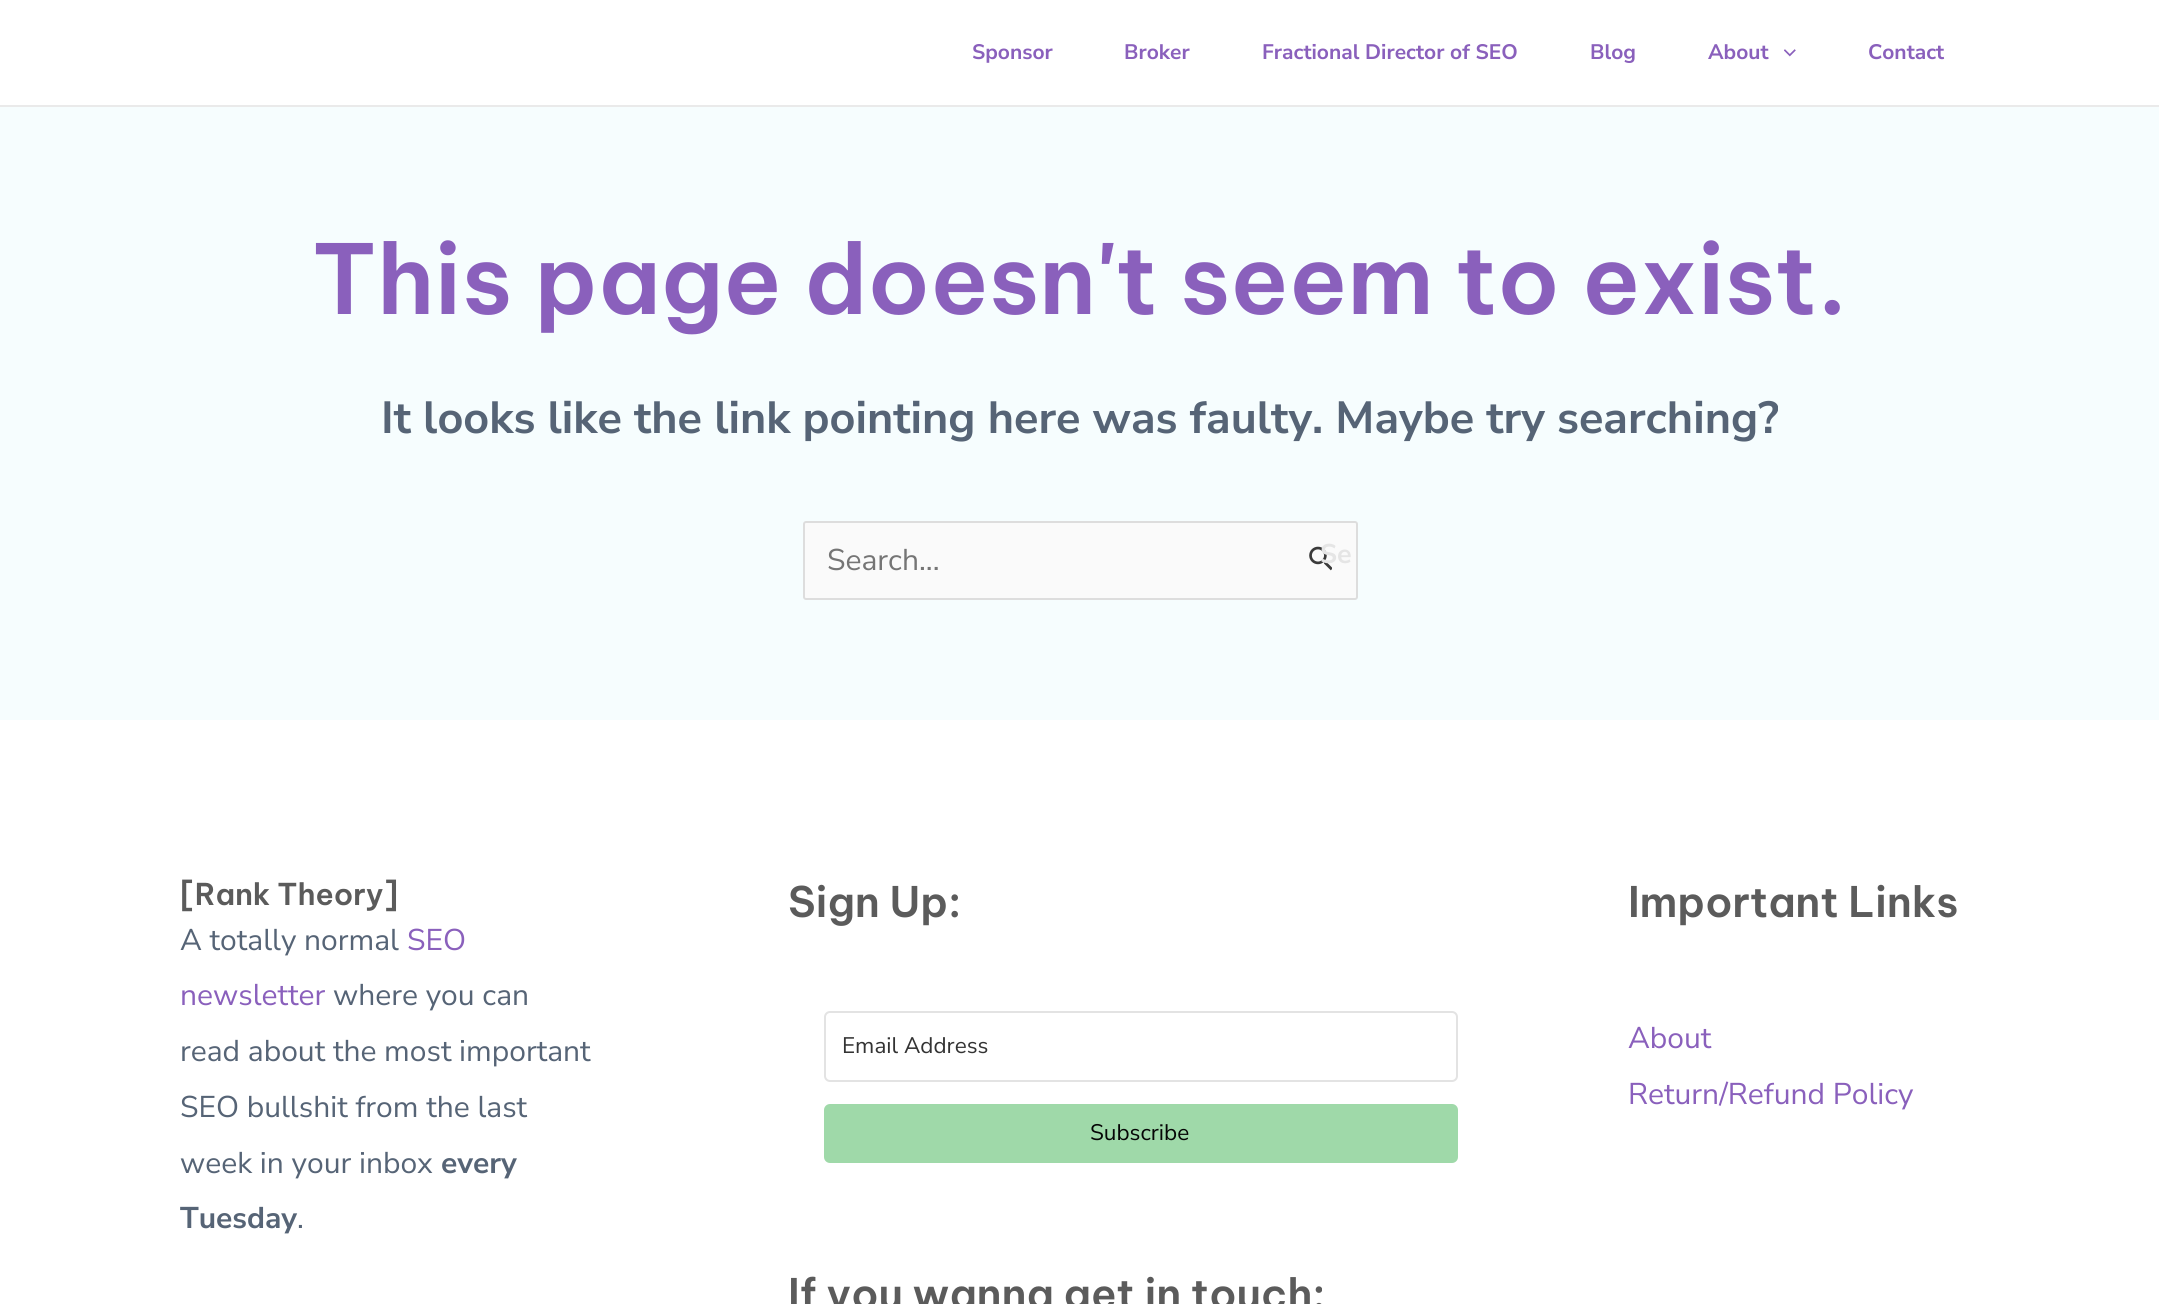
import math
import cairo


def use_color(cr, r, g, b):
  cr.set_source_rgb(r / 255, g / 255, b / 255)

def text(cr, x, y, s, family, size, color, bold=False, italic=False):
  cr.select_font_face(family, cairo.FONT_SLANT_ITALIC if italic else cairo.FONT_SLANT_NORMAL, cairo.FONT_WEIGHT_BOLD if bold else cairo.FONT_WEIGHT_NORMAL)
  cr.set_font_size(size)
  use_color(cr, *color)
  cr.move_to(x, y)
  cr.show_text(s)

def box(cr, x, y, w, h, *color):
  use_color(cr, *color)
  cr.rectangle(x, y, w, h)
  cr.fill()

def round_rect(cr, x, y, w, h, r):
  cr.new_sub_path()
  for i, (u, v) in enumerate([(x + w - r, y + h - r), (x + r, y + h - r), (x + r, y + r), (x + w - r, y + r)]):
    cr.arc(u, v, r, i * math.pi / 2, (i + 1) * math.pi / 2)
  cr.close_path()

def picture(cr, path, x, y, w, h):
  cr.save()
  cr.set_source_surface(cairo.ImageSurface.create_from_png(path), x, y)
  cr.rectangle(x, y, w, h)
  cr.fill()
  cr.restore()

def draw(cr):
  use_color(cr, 246, 253, 254)
  cr.paint()
  box(cr, 0, 0, 2159, 105, 255, 255, 255)
  box(cr, 0, 105, 2159, 2, 234, 234, 234)
  picture(cr, "img_01.png", 1784, 49, 12, 8)
  use_color(cr, 250, 250, 250)
  round_rect(cr, 804, 522, 553, 77, 2)
  cr.fill_preserve()
  use_color(cr, 221, 221, 221)
  cr.stroke()
  picture(cr, "img_02.png", 1309, 546, 23, 25)
  box(cr, 0, 720, 2159, 584, 255, 255, 255)
  round_rect(cr, 825, 1012, 632, 69, 5)
  use_color(cr, 227, 227, 227)
  cr.stroke()
  use_color(cr, 159, 217, 169)
  round_rect(cr, 824, 1104, 634, 59, 6)
  cr.fill()
  text(cr, 972, 59, "Sponsor", "Nunito Sans", 21, (138, 96, 188), bold=True)
  text(cr, 1124, 59, "Broker", "Nunito Sans", 21, (138, 96, 188), bold=True)
  text(cr, 1262, 59, "Fractional Director of SEO", "Nunito Sans", 21, (138, 96, 188), bold=True)
  text(cr, 1590, 59, "Blog", "Nunito Sans", 21, (138, 96, 188), bold=True)
  text(cr, 1708, 59, "About", "Nunito Sans", 21, (138, 96, 188), bold=True)
  text(cr, 1868, 59, "Contact", "Nunito Sans", 21, (138, 96, 188), bold=True)
  text(cr, 312, 314, "This page doesn't seem to exist.", "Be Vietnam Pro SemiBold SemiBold", 96, (138, 96, 188))
  text(cr, 381, 433, "It looks like the link pointing here was faulty. Maybe try searching?", "Nunito Sans", 45, (86, 100, 118), bold=True)
  text(cr, 827, 570, "Search...", "Nunito Sans", 30, (117, 117, 117))
  text(cr, 1320, 563, "Se", "Nunito Sans", 27, (229, 229, 229), bold=True)
  text(cr, 180, 905, "[Rank Theory]", "Be Vietnam Pro SemiBold SemiBold", 30, (91, 91, 91))
  text(cr, 180, 950, "A totally normal", "Nunito Sans", 30, (86, 100, 118))
  text(cr, 407, 950, "SEO", "Nunito Sans", 30, (138, 96, 188))
  text(cr, 180, 1005, "newsletter", "Nunito Sans", 30, (138, 96, 188))
  text(cr, 333, 1005, "where you can", "Nunito Sans", 30, (86, 100, 118))
  text(cr, 180, 1061, "read about the most important", "Nunito Sans", 30, (86, 100, 118))
  text(cr, 180, 1117, "SEO bullshit from the last", "Nunito Sans", 30, (86, 100, 118))
  text(cr, 180, 1173, "week in your inbox", "Nunito Sans", 30, (86, 100, 118))
  text(cr, 441, 1173, "every", "Nunito Sans", 30, (86, 100, 118), bold=True)
  text(cr, 180, 1228, "Tuesday", "Nunito Sans", 30, (86, 100, 118), bold=True)
  text(cr, 297, 1228, ".", "Nunito Sans", 30, (86, 100, 118))
  text(cr, 788, 917, "Sign Up:", "Be Vietnam Pro SemiBold SemiBold", 42, (91, 91, 91))
  text(cr, 842, 1053, "Email Address", "Nunito Sans", 22.5, (51, 51, 51))
  text(cr, 1090, 1140, "Subscribe", "Nunito Sans", 22.5, (5, 5, 5))
  text(cr, 788, 1309, "If you wanna get in touch:", "Be Vietnam Pro SemiBold SemiBold", 42, (91, 91, 91))
  text(cr, 1628, 917, "Important Links", "Be Vietnam Pro SemiBold SemiBold", 42, (91, 91, 91))
  text(cr, 1628, 1048, "About", "Nunito Sans", 30, (138, 96, 188))
  text(cr, 1628, 1104, "Return/Refund Policy", "Nunito Sans", 30, (138, 96, 188))


surface = cairo.ImageSurface(cairo.FORMAT_RGB24, 2159, 1304)
cr = cairo.Context(surface)
options = cairo.FontOptions()
options.set_hint_metrics(cairo.HINT_METRICS_OFF)
options.set_hint_style(cairo.HINT_STYLE_NONE)
cr.set_font_options(options)
cr.set_miter_limit(4)
draw(cr)
surface.write_to_png("out.png")
